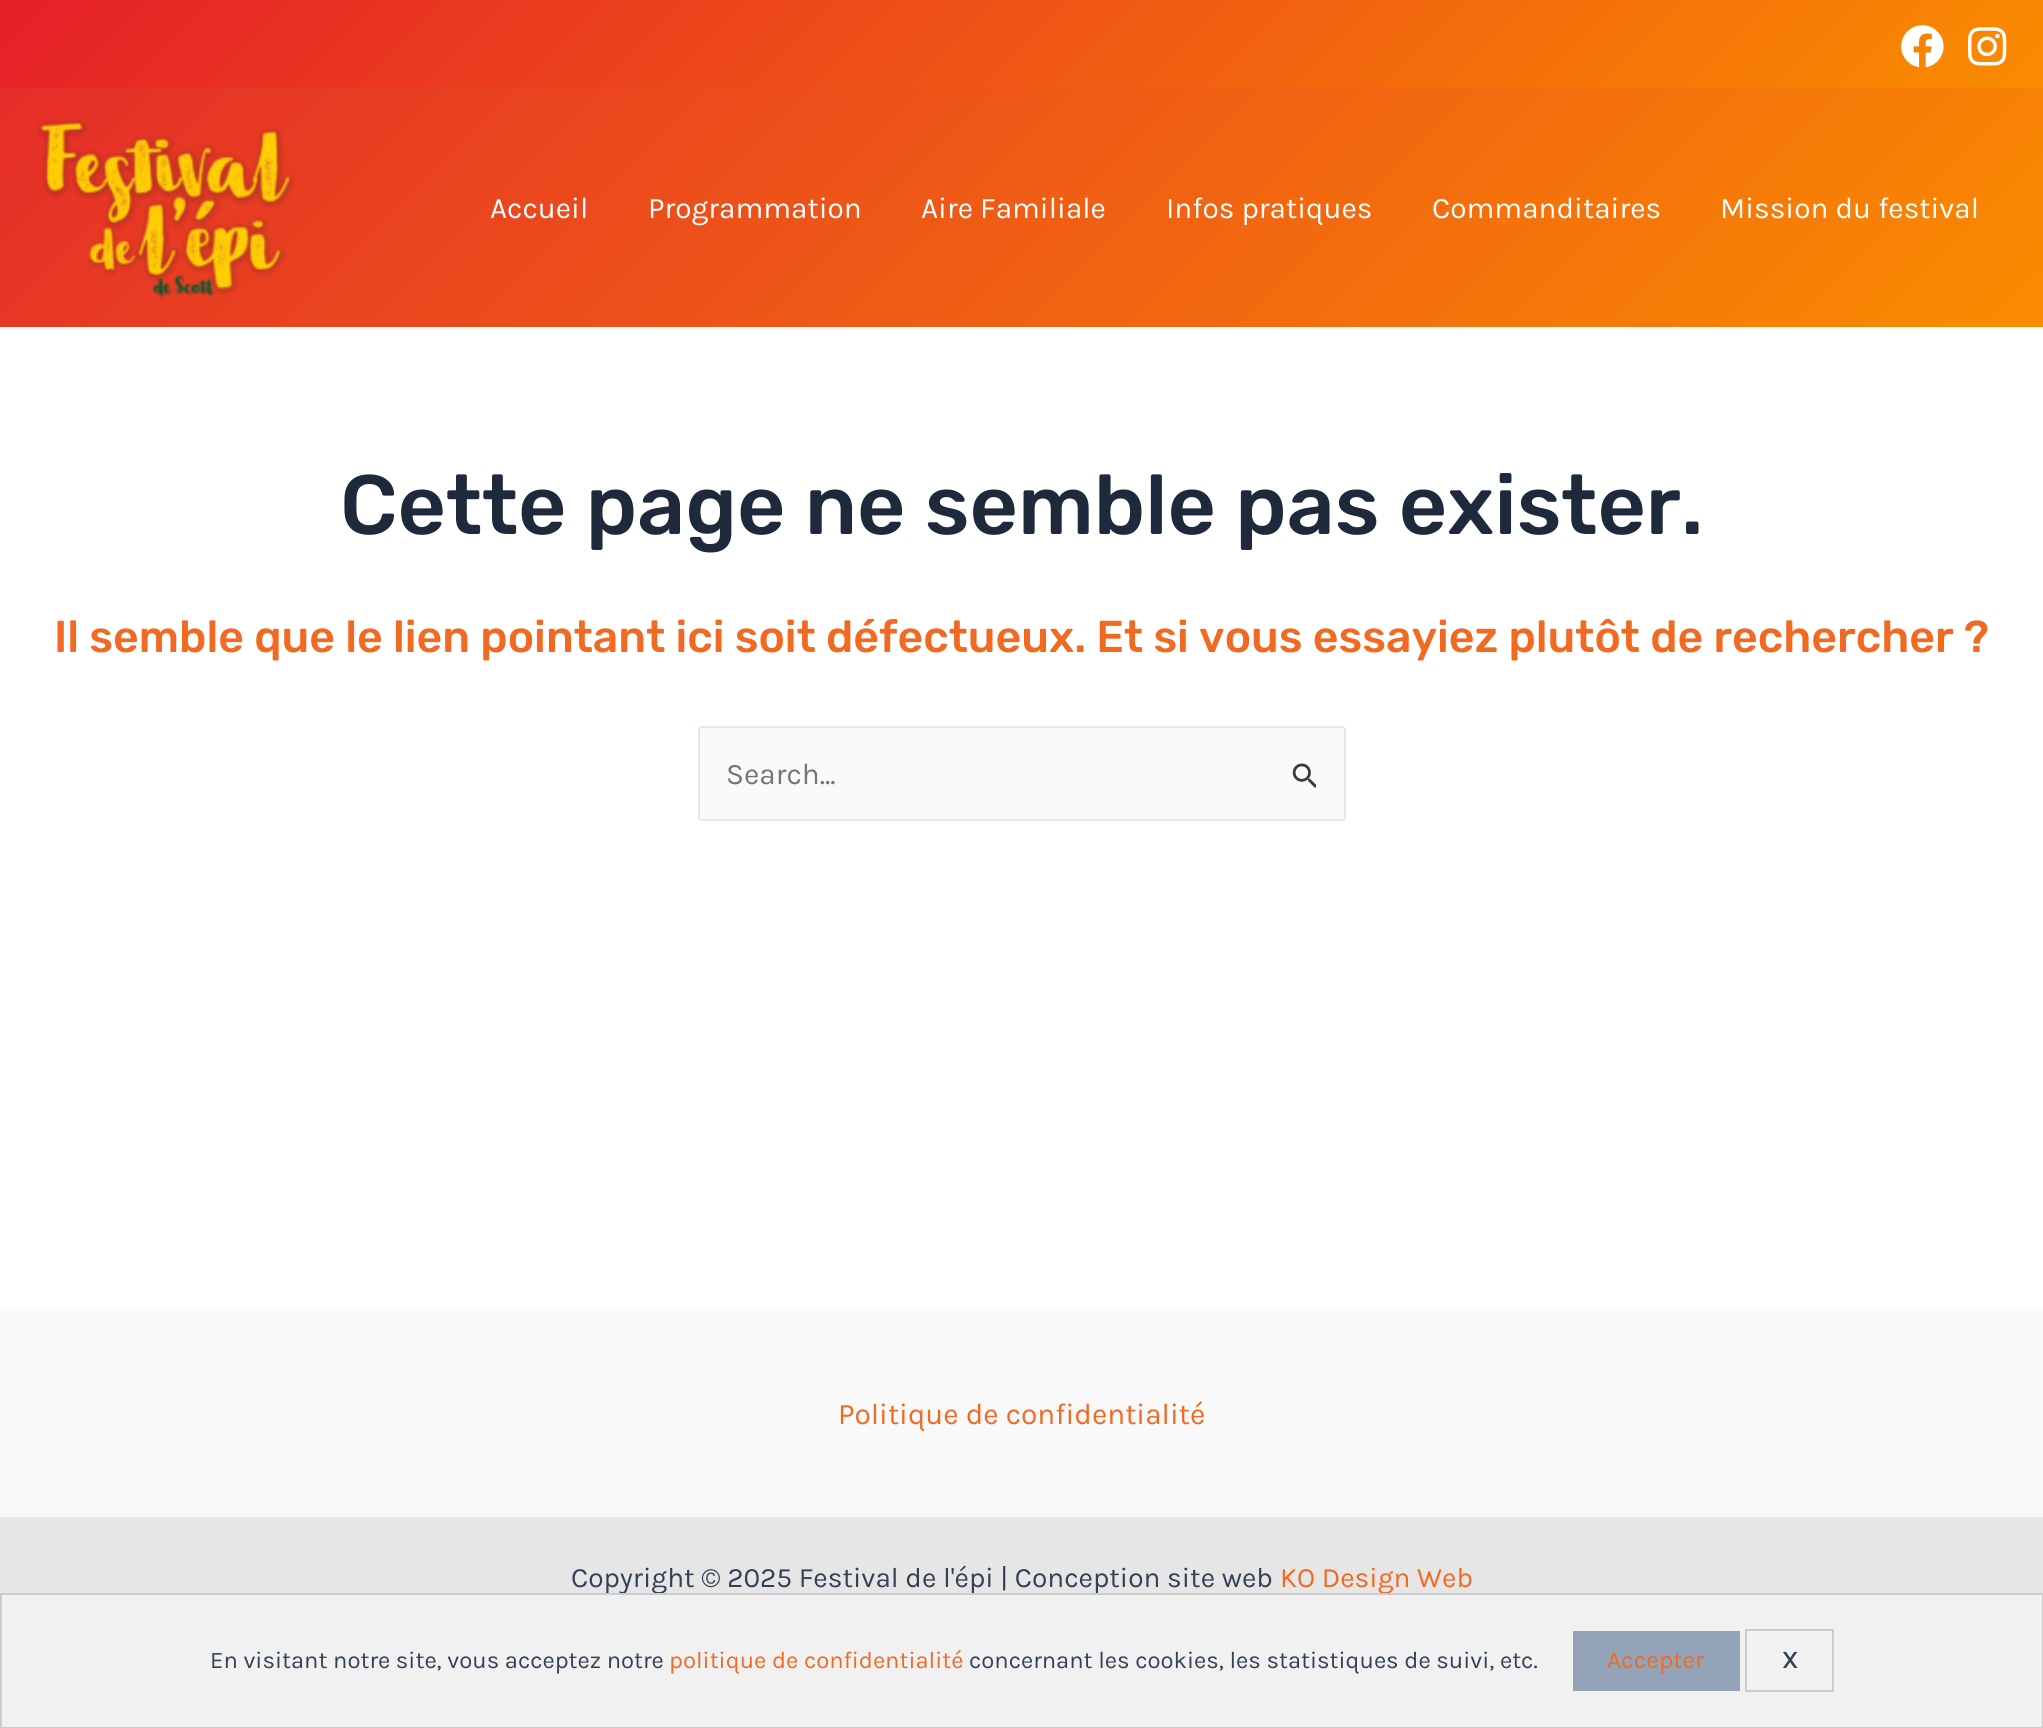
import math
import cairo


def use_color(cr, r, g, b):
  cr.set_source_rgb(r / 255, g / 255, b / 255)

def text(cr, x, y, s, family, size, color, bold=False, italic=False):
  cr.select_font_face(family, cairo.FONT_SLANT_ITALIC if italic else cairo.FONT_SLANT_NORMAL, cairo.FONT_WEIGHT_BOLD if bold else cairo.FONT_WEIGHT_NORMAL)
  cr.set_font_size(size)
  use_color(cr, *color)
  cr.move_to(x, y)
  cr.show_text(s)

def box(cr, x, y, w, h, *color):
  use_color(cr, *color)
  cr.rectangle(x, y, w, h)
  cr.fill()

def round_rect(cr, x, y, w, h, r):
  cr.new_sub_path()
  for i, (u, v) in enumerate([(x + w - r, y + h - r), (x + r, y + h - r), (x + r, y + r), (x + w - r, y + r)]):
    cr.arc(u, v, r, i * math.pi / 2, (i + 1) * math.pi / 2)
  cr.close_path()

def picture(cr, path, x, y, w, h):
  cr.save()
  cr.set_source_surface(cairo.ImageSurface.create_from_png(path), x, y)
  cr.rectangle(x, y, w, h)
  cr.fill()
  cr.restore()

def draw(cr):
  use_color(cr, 255, 255, 255)
  cr.paint()
  gradient = cairo.LinearGradient(489, -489, 1555, 577)
  gradient.add_color_stop_rgba(0, 0.898, 0.125, 0.161, 1)
  gradient.add_color_stop_rgba(1, 0.98, 0.549, 0, 1)
  cr.set_source(gradient)
  cr.rectangle(0, 0, 2043, 88)
  cr.fill()
  picture(cr, "img_01.png", 1901, 25, 43, 43)
  picture(cr, "img_02.png", 1968, 27, 39, 39)
  gradient = cairo.LinearGradient(451, -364, 1593, 778)
  gradient.add_color_stop_rgba(0, 0.898, 0.176, 0.161, 1)
  gradient.add_color_stop_rgba(1, 0.98, 0.549, 0, 1)
  cr.set_source(gradient)
  cr.rectangle(0, 88, 2043, 239)
  cr.fill()
  picture(cr, "img_03.png", 37, 119, 259, 179)
  use_color(cr, 250, 250, 250)
  round_rect(cr, 699, 727, 646, 93, 3)
  cr.fill_preserve()
  use_color(cr, 226, 232, 240)
  cr.stroke()
  picture(cr, "img_04.png", 1292, 763, 24, 25)
  box(cr, 0, 1311, 2043, 206, 249, 249, 249)
  box(cr, 0, 1519, 2043, 74, 230, 230, 230)
  box(cr, 0, 1517, 2043, 2, 226, 232, 240)
  text(cr, 490, 218, "Accueil", "Karla", 29.75, (255, 255, 255))
  text(cr, 648, 218, "Programmation", "Karla", 29.75, (255, 255, 255))
  text(cr, 921, 218, "Aire Familiale", "Karla", 29.75, (255, 255, 255))
  text(cr, 1166, 218, "Infos pratiques", "Karla", 29.75, (255, 255, 255))
  text(cr, 1432, 218, "Commanditaires", "Karla", 29.75, (255, 255, 255))
  text(cr, 1720, 218, "Mission du festival", "Karla", 29.75, (255, 255, 255))
  text(cr, 340, 534, "Cette page ne semble pas exister.", "Rubik Medium", 84, (30, 41, 59))
  text(cr, 54, 652, "Il semble que le lien pointant ici soit défectueux. Et si vous essayiez plutôt de rechercher ?", "Rubik Medium", 44.6, (242, 105, 34))
  text(cr, 726, 784, "Search...", "Karla", 29.75, (117, 117, 117))
  text(cr, 838, 1424, "Politique de confidentialité", "Karla", 29.75, (242, 105, 34))
  text(cr, 571, 1587, "Copyright © 2025 Festival de l'épi | Conception site web", "Karla", 28, (51, 65, 85))
  text(cr, 1280, 1587, "KO Design Web", "Karla", 28, (242, 105, 34))
  use_color(cr, 241, 241, 241)
  cr.rectangle(1, 1594, 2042, 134)
  cr.fill_preserve()
  use_color(cr, 204, 204, 204)
  cr.stroke()
  text(cr, 210, 1668, "En visitant notre site, vous acceptez notre", "Karla", 23.8, (51, 65, 85))
  text(cr, 669, 1668, "politique de confidentialité", "Karla", 23.8, (242, 105, 34))
  text(cr, 969, 1668, "concernant les cookies, les statistiques de suivi, etc.", "Karla", 23.8, (51, 65, 85))
  box(cr, 1573, 1631, 167, 60, 148, 163, 184)
  text(cr, 1607, 1668, "Accepter", "Karla", 24.5, (242, 105, 34))
  cr.rectangle(1746, 1630, 87, 61)
  use_color(cr, 204, 204, 204)
  cr.stroke()
  text(cr, 1782, 1668, "X", "Karla", 24.5, (51, 65, 85), bold=True)


surface = cairo.ImageSurface(cairo.FORMAT_RGB24, 2043, 1728)
cr = cairo.Context(surface)
options = cairo.FontOptions()
options.set_hint_metrics(cairo.HINT_METRICS_OFF)
options.set_hint_style(cairo.HINT_STYLE_NONE)
cr.set_font_options(options)
cr.set_miter_limit(4)
draw(cr)
surface.write_to_png("out.png")
